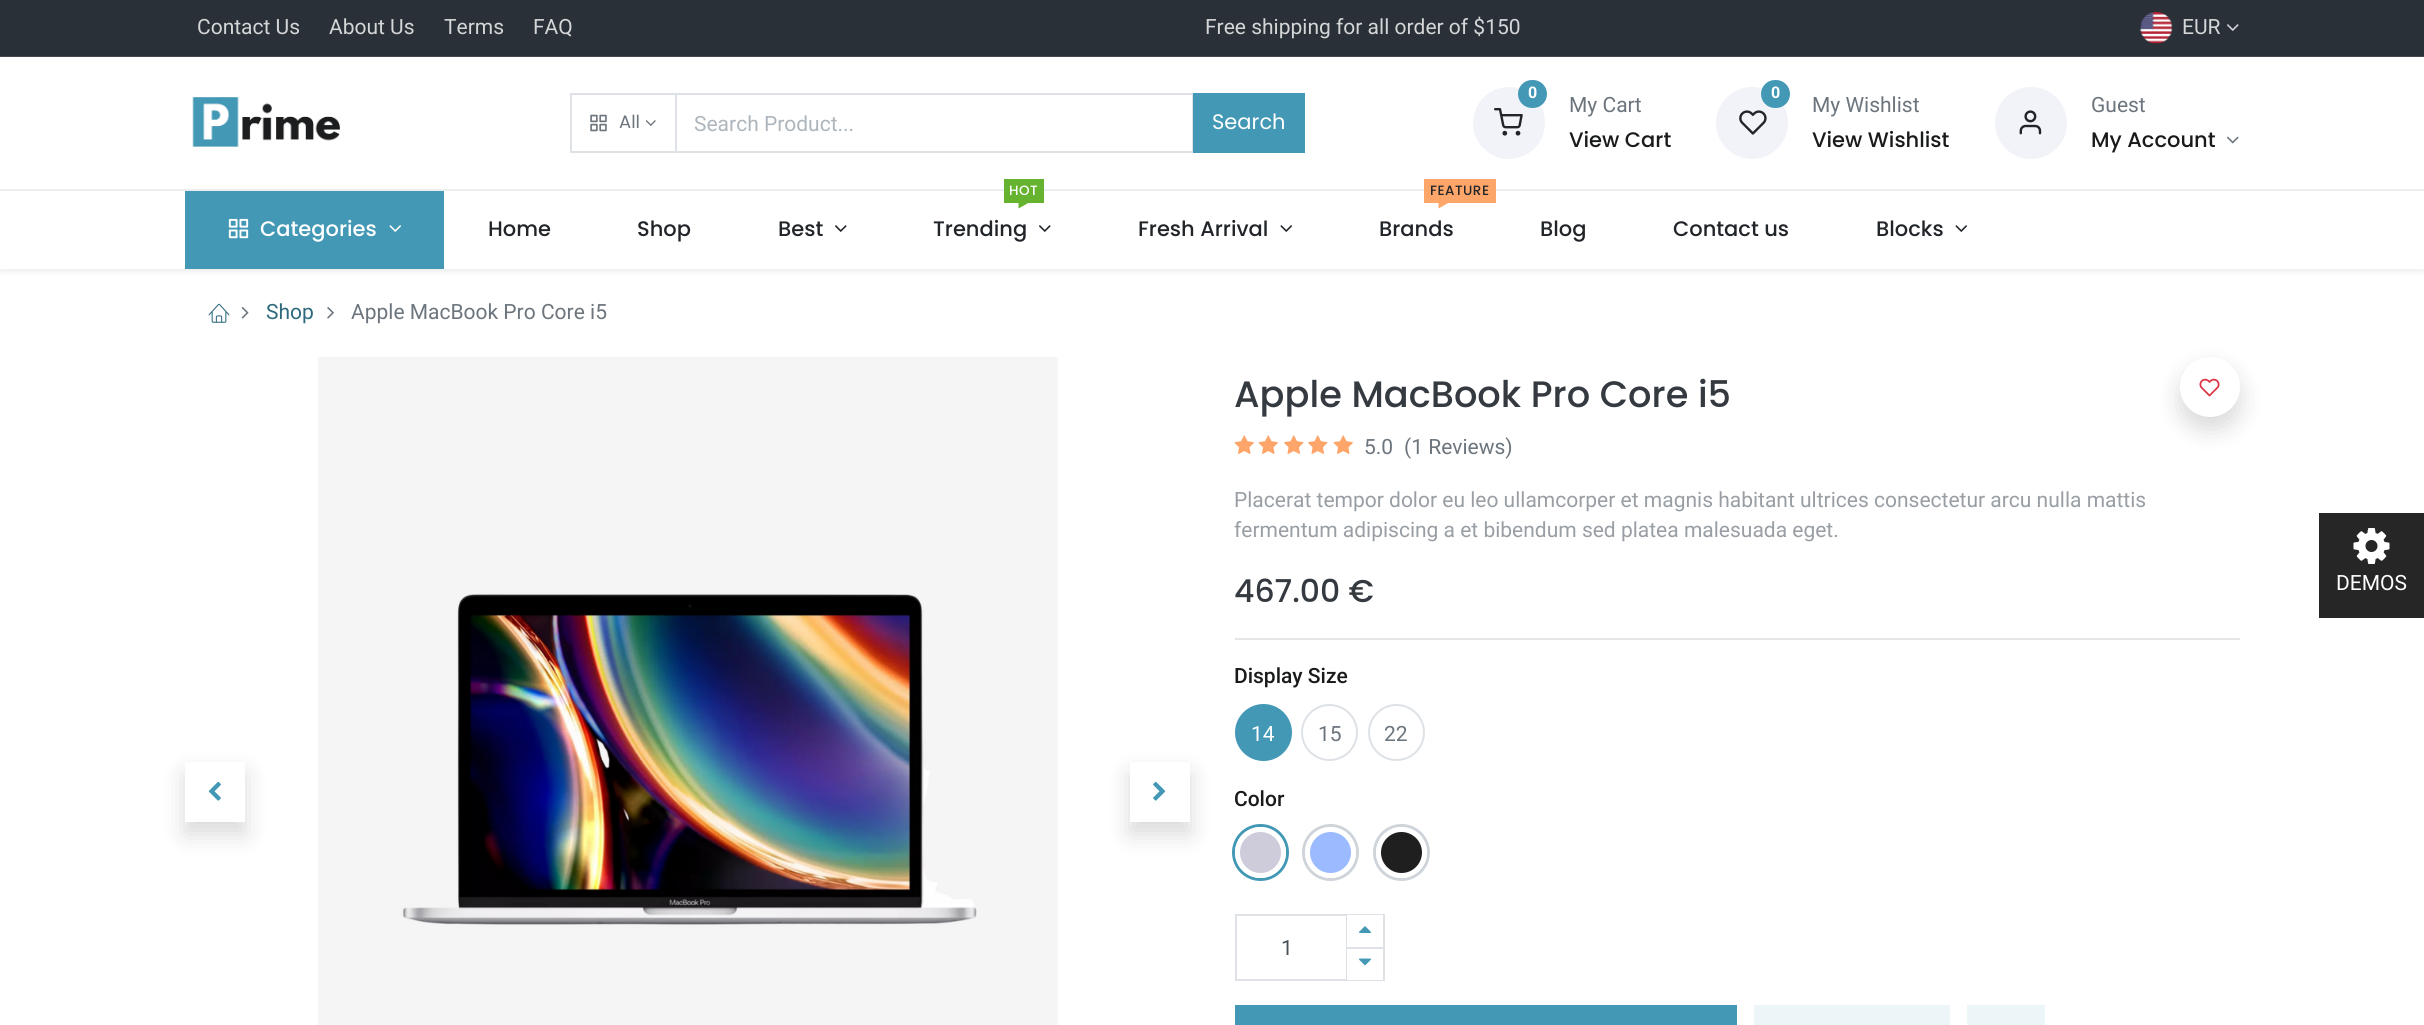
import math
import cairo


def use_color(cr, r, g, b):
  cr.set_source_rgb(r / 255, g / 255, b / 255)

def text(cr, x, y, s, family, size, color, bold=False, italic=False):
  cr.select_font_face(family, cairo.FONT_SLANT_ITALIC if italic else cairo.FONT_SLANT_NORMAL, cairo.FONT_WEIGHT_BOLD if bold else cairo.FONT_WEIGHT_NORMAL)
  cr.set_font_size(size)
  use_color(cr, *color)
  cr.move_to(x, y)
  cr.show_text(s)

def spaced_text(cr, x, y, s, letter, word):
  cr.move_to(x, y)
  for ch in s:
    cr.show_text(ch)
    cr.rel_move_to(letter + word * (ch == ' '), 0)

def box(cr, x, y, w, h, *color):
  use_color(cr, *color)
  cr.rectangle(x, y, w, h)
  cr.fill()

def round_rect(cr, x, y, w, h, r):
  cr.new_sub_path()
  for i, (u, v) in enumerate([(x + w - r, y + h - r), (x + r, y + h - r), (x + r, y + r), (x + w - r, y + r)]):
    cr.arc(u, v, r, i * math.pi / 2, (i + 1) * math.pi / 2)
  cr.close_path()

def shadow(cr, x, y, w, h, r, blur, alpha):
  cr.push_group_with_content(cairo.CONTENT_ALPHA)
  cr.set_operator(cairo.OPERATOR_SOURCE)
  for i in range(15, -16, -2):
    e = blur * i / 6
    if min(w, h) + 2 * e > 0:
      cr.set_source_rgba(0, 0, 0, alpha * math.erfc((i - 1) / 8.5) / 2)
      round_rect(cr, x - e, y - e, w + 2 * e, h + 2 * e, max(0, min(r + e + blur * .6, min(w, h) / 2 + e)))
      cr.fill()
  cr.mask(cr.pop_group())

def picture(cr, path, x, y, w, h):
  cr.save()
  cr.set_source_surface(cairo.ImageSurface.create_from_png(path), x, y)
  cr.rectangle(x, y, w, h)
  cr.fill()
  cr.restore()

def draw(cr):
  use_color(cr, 255, 255, 255)
  cr.paint()
  box(cr, 0, 0, 2424, 56, 41, 48, 55)
  box(cr, 0, 56, 2424, 1, 67, 73, 79)
  picture(cr, "img_01.png", 2140, 12, 33, 32)
  picture(cr, "img_02.png", 2227, 24, 12, 7)
  box(cr, 0, 189, 2424, 2, 237, 238, 239)
  picture(cr, "img_03.png", 192, 97, 148, 50)
  cr.rectangle(676, 94, 517, 58)
  use_color(cr, 222, 226, 230)
  cr.stroke()
  cr.rectangle(571, 94, 105, 58)
  cr.stroke()
  picture(cr, "img_04.png", 590, 114, 17, 18)
  picture(cr, "img_05.png", 645, 120, 11, 6)
  box(cr, 1193, 93, 112, 60, 66, 152, 181)
  use_color(cr, 241, 243, 248)
  cr.arc(1509, 123, 36, 0, 2 * math.pi)
  cr.fill()
  use_color(cr, 66, 152, 181)
  round_rect(cr, 1518, 80, 29, 28, 14)
  cr.fill()
  picture(cr, "img_06.png", 1494, 108, 29, 28)
  use_color(cr, 241, 243, 248)
  cr.arc(1752, 123, 36, 0, 2 * math.pi)
  cr.fill()
  use_color(cr, 66, 152, 181)
  round_rect(cr, 1761, 80, 29, 28, 14)
  cr.fill()
  picture(cr, "img_07.png", 1739, 110, 28, 25)
  use_color(cr, 241, 243, 248)
  cr.arc(2031, 123, 36, 0, 2 * math.pi)
  cr.fill()
  picture(cr, "img_08.png", 2019, 110, 23, 25)
  picture(cr, "img_09.png", 2227, 136, 12, 8)
  use_color(cr, 0, 0, 0)
  shadow(cr, 0, 194, 2424, 78, 0, 3, 0.07)
  box(cr, 0, 191, 2424, 78, 255, 255, 255)
  box(cr, 185, 191, 259, 78, 66, 152, 181)
  picture(cr, "img_10.png", 228, 218, 21, 21)
  picture(cr, "img_11.png", 389, 225, 12, 7)
  picture(cr, "img_12.png", 835, 225, 12, 7)
  box(cr, 1004, 179, 40, 24, 101, 179, 46)
  cr.new_path()
  cr.move_to(1018.5, 202.5)
  cr.line_to(1029, 202.5)
  cr.line_to(1018.5, 208.5)
  cr.close_path()
  cr.fill()
  picture(cr, "img_12.png", 1039, 225, 12, 7)
  picture(cr, "img_13.png", 1280, 225, 12, 7)
  box(cr, 1424, 179, 72, 24, 254, 165, 105)
  cr.new_path()
  cr.move_to(1438.5, 202.5)
  cr.line_to(1449, 202.5)
  cr.line_to(1438.5, 208.5)
  cr.close_path()
  cr.fill()
  picture(cr, "img_13.png", 1955, 225, 12, 7)
  picture(cr, "img_14.png", 208, 303, 22, 20)
  picture(cr, "img_15.png", 241, 307, 8, 12)
  picture(cr, "img_16.png", 327, 307, 7, 12)
  use_color(cr, 0, 0, 0)
  shadow(cr, 185, 774, 60, 60, 0, 12, 0.15)
  box(cr, 185, 762, 60, 60, 255, 255, 255)
  picture(cr, "img_17.png", 208, 781, 13, 20)
  picture(cr, "img_18.png", 318, 357, 740, 668)
  use_color(cr, 0, 0, 0)
  shadow(cr, 1130, 774, 60, 60, 0, 12, 0.15)
  box(cr, 1130, 762, 60, 60, 255, 255, 255)
  picture(cr, "img_19.png", 1153, 781, 13, 20)
  picture(cr, "img_20.png", 1234, 435, 20, 19)
  picture(cr, "img_20.png", 1258, 435, 20, 19)
  picture(cr, "img_21.png", 1284, 435, 20, 19)
  picture(cr, "img_21.png", 1308, 435, 20, 19)
  picture(cr, "img_20.png", 1333, 435, 20, 19)
  use_color(cr, 0, 0, 0)
  shadow(cr, 2180, 369, 60, 60, 30, 12, 0.15)
  use_color(cr, 255, 255, 255)
  cr.arc(2210, 387, 30, 0, 2 * math.pi)
  cr.fill()
  picture(cr, "img_22.png", 2199, 378, 21, 19)
  box(cr, 1967, 1005, 78, 20, 236, 245, 248)
  box(cr, 1235, 638, 1005, 2, 230, 230, 230)
  use_color(cr, 66, 152, 181)
  cr.arc(1263.5, 732.5, 27.5, 0, 2 * math.pi)
  cr.fill_preserve()
  cr.stroke()
  cr.arc(1329.5, 732.5, 27.5, 0, 2 * math.pi)
  use_color(cr, 222, 226, 230)
  cr.stroke()
  cr.arc(1396.5, 732.5, 27.5, 0, 2 * math.pi)
  cr.stroke()
  cr.arc(1260.5, 852.5, 27, 0, 2 * math.pi)
  use_color(cr, 66, 152, 181)
  cr.set_line_width(3)
  cr.stroke()
  use_color(cr, 206, 204, 218)
  cr.arc(1260.5, 852.5, 23, 0, 2 * math.pi)
  cr.fill_preserve()
  use_color(cr, 255, 255, 255)
  cr.set_line_width(5)
  cr.stroke()
  cr.arc(1330.5, 852.5, 27, 0, 2 * math.pi)
  use_color(cr, 206, 212, 218)
  cr.set_line_width(3)
  cr.stroke()
  use_color(cr, 156, 186, 255)
  cr.arc(1330.5, 852.5, 23, 0, 2 * math.pi)
  cr.fill_preserve()
  use_color(cr, 255, 255, 255)
  cr.set_line_width(5)
  cr.stroke()
  cr.arc(1401.5, 852.5, 27, 0, 2 * math.pi)
  use_color(cr, 206, 212, 218)
  cr.set_line_width(3)
  cr.stroke()
  use_color(cr, 31, 31, 31)
  cr.arc(1401.5, 852.5, 23, 0, 2 * math.pi)
  cr.fill_preserve()
  use_color(cr, 255, 255, 255)
  cr.set_line_width(5)
  cr.stroke()
  cr.rectangle(1236, 915, 148, 65)
  use_color(cr, 222, 226, 230)
  cr.set_line_width(2)
  cr.stroke()
  box(cr, 1346, 947, 1, 33, 222, 226, 230)
  box(cr, 1346, 947, 37, 2, 222, 226, 230)
  box(cr, 1346, 915, 2, 33, 222, 226, 230)
  box(cr, 1347, 915, 36, 32, 255, 255, 255)
  picture(cr, "img_23.png", 1359, 926, 12, 7)
  box(cr, 1347, 979, 36, 1, 255, 255, 255)
  picture(cr, "img_24.png", 1359, 958, 12, 8)
  box(cr, 1235, 1005, 502, 20, 66, 152, 181)
  box(cr, 1754, 1005, 196, 20, 236, 245, 248)
  box(cr, 2319, 513, 105, 105, 38, 38, 38)
  picture(cr, "img_25.png", 2353, 528, 37, 36)
  text(cr, 197, 34, "Contact Us", "Roboto", 21, (212, 214, 215))
  text(cr, 329, 34, "About Us", "Roboto", 21, (212, 214, 215))
  text(cr, 444, 34, "Terms", "Roboto", 21, (212, 214, 215))
  text(cr, 533, 34, "FAQ", "Roboto", 21, (212, 214, 215))
  text(cr, 1205, 34, "Free shipping for all order of $150", "Roboto", 21, (212, 214, 215))
  text(cr, 2182, 34, "EUR", "Roboto", 21, (212, 214, 215))
  text(cr, 619, 128, "All", "Poppins", 18, (108, 117, 125))
  text(cr, 694, 131, "Search Product...", "Roboto", 21, (173, 181, 189))
  text(cr, 1212, 129, "Search", "Poppins", 21, (255, 255, 255))
  text(cr, 1528, 98, "0", "Roboto", 16, (255, 255, 255), bold=True)
  text(cr, 1569, 112, "My Cart", "Roboto", 21, (108, 117, 125))
  text(cr, 1569, 147, "View Cart", "Poppins Medium", 21, (25, 26, 26))
  text(cr, 1771, 98, "0", "Roboto", 16, (255, 255, 255), bold=True)
  text(cr, 1812, 112, "My Wishlist", "Roboto", 21, (108, 117, 125))
  text(cr, 1812, 147, "View Wishlist", "Poppins Medium", 21, (25, 26, 26))
  text(cr, 2091, 112, "Guest", "Roboto", 21, (108, 117, 125))
  text(cr, 2091, 147, "My Account", "Poppins Medium", 21, (25, 26, 26))
  text(cr, 260, 236, "Categories", "Poppins Medium", 21, (255, 255, 255))
  text(cr, 488, 236, "Home", "Poppins Medium", 21, (33, 37, 41))
  text(cr, 637, 236, "Shop", "Poppins Medium", 21, (33, 37, 41))
  text(cr, 778, 236, "Best", "Poppins Medium", 21, (33, 37, 41))
  cr.set_font_size(13.5)
  use_color(cr, 255, 255, 255)
  spaced_text(cr, 1009, 195, "HOT", 0.5, 0)
  text(cr, 933, 236, "Trending", "Poppins Medium", 21, (33, 37, 41))
  text(cr, 1138, 236, "Fresh Arrival", "Poppins Medium", 21, (33, 37, 41))
  cr.set_font_size(13.5)
  spaced_text(cr, 1430, 195, "FEATURE", 0.5, 0)
  text(cr, 1379, 236, "Brands", "Poppins Medium", 21, (33, 37, 41))
  text(cr, 1540, 236, "Blog", "Poppins Medium", 21, (33, 37, 41))
  text(cr, 1673, 236, "Contact us", "Poppins Medium", 21, (33, 37, 41))
  text(cr, 1876, 236, "Blocks", "Poppins Medium", 21, (33, 37, 41))
  text(cr, 266, 319, "Shop", "Roboto", 21, (46, 105, 125))
  text(cr, 351, 319, "Apple MacBook Pro Core i5", "Roboto", 21, (108, 117, 125))
  text(cr, 1234, 407, "Apple MacBook Pro Core i5", "Poppins Medium", 36.75, (52, 58, 64))
  text(cr, 1364, 454, "5.0", "Roboto", 21, (108, 117, 125))
  text(cr, 1404, 454, "(1 Reviews)", "Roboto", 21, (108, 117, 125))
  text(cr, 1234, 507, "Placerat tempor dolor eu leo ullamcorper et magnis habitant ultrices consectetur arcu nulla mattis", "Roboto", 21, (152, 158, 164))
  text(cr, 1234, 537, "fermentum adipiscing a et bibendum sed platea malesuada eget.", "Roboto", 21, (152, 158, 164))
  text(cr, 1234, 602, "467.00 €", "Poppins Medium", 31.5, (52, 58, 64))
  text(cr, 1234, 683, "Display Size", "Roboto Medium", 21, (25, 26, 26))
  text(cr, 1251, 741, "14", "Roboto", 21, (255, 255, 255))
  text(cr, 1318, 741, "15", "Roboto", 21, (108, 117, 125))
  text(cr, 1384, 741, "22", "Roboto", 21, (108, 117, 125))
  text(cr, 1234, 806, "Color", "Roboto Medium", 21, (25, 26, 26))
  text(cr, 1281, 955, "1", "Roboto", 21, (73, 80, 87))
  text(cr, 2336, 590, "DEMOS", "Roboto", 21, (255, 255, 255))


surface = cairo.ImageSurface(cairo.FORMAT_RGB24, 2424, 1025)
cr = cairo.Context(surface)
options = cairo.FontOptions()
options.set_hint_metrics(cairo.HINT_METRICS_OFF)
options.set_hint_style(cairo.HINT_STYLE_NONE)
cr.set_font_options(options)
cr.set_miter_limit(4)
draw(cr)
surface.write_to_png("out.png")
